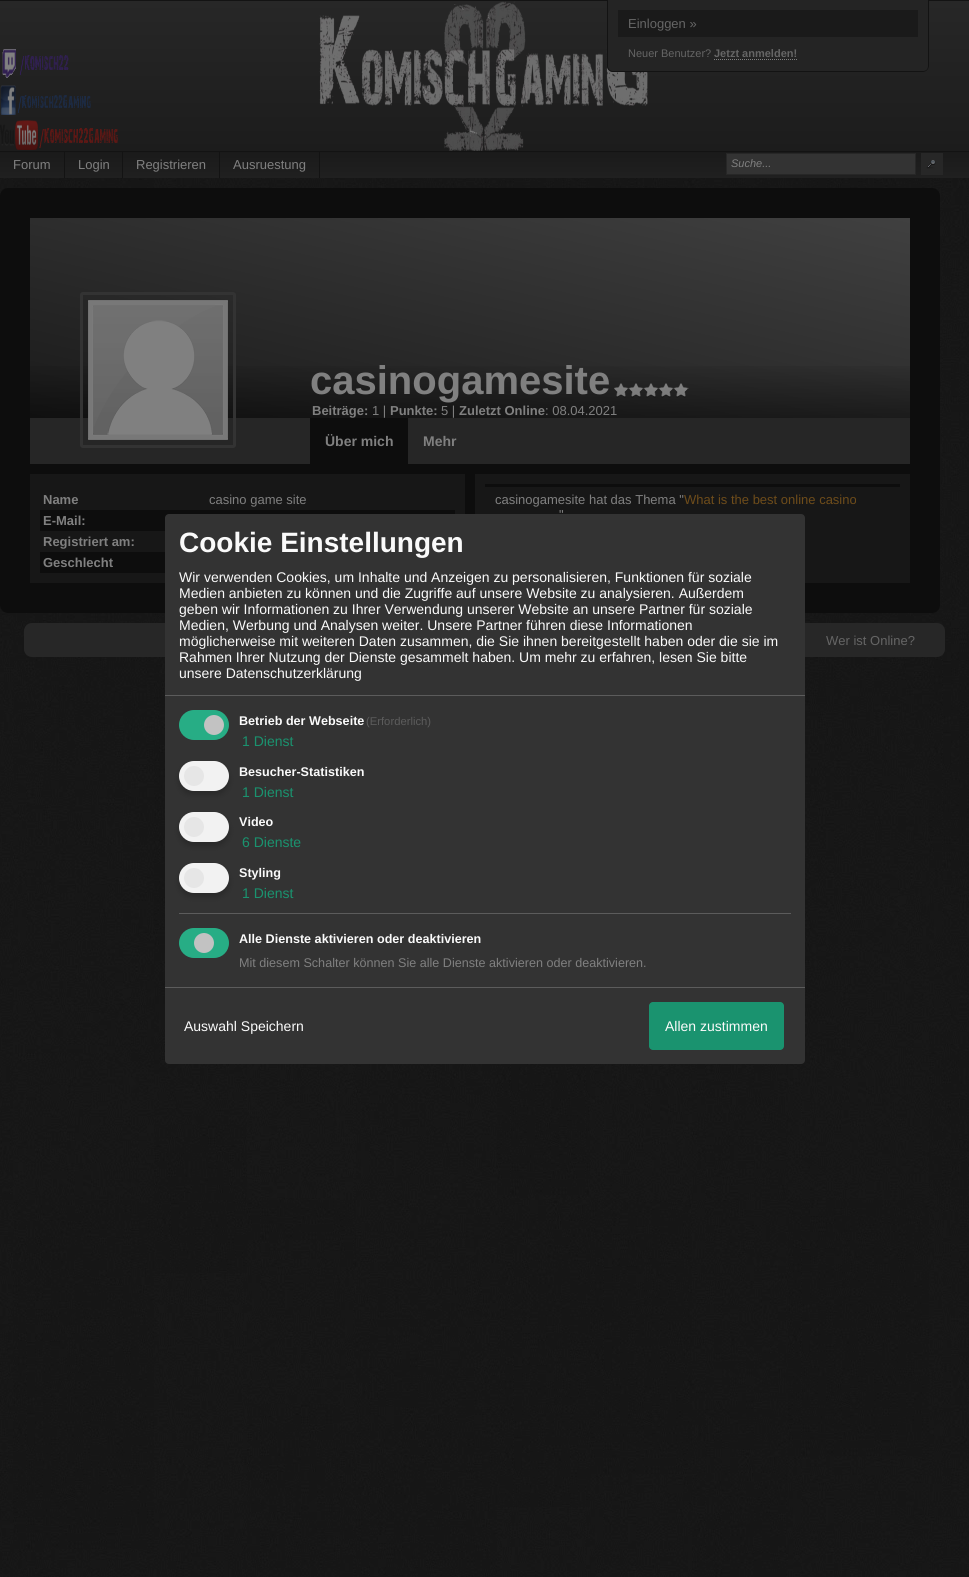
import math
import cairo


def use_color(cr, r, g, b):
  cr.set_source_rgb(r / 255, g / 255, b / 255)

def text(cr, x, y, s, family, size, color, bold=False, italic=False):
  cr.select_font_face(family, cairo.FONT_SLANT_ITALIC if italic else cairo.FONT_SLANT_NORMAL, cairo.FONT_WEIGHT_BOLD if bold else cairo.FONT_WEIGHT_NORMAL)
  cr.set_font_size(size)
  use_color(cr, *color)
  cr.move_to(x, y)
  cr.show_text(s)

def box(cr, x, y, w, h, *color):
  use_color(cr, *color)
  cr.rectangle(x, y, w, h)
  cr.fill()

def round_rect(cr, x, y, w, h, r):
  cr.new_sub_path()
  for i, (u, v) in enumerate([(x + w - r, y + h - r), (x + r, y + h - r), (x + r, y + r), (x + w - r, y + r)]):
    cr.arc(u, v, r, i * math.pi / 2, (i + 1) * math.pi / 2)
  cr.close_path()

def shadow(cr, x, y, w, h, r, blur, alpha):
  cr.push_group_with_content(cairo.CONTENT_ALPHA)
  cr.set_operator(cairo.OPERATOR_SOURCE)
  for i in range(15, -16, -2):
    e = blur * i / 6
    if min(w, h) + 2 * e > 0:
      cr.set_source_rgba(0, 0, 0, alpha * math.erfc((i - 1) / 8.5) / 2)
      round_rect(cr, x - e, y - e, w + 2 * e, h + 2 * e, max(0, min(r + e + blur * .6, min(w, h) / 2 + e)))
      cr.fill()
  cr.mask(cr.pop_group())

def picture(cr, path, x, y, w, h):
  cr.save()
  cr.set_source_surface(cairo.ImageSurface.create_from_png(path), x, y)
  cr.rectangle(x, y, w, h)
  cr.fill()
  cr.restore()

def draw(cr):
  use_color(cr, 255, 255, 255)
  cr.paint()
  picture(cr, "img_01.png", 0, 178, 969, 1399)
  box(cr, 0, 0, 969, 1, 19, 19, 19)
  gradient = cairo.LinearGradient(0, 1, 0, 178)
  gradient.add_color_stop_rgba(0, 0.153, 0.153, 0.153, 1)
  gradient.add_color_stop_rgba(1, 0.102, 0.102, 0.102, 1)
  cr.set_source(gradient)
  cr.rectangle(0, 1, 969, 150)
  cr.fill()
  picture(cr, "img_02.png", 0, 1, 648, 150)
  use_color(cr, 36, 36, 36)
  cr.new_path()
  cr.move_to(607, 0)
  cr.line_to(929, 0)
  cr.line_to(929, 66)
  cr.curve_to(929, 69.5, 926.5, 72, 923, 72)
  cr.line_to(613, 72)
  cr.curve_to(609.5, 72, 607, 69.5, 607, 66)
  cr.close_path()
  cr.fill()
  use_color(cr, 19, 19, 19)
  cr.set_fill_rule(cairo.FILL_RULE_EVEN_ODD)
  cr.new_path()
  cr.move_to(607, 0)
  cr.line_to(929, 0)
  cr.line_to(929, 66)
  cr.curve_to(929, 69, 926, 72, 923, 72)
  cr.line_to(613, 72)
  cr.curve_to(610, 72, 607, 69, 607, 66)
  cr.close_path()
  cr.move_to(608, 0)
  cr.line_to(928, 0)
  cr.line_to(928, 66)
  cr.curve_to(928, 69, 926, 71, 923, 71)
  cr.line_to(613, 71)
  cr.curve_to(610, 71, 608, 69, 608, 66)
  cr.close_path()
  cr.fill()
  box(cr, 618, 10, 300, 27, 26, 26, 26)
  cr.new_path()
  cr.move_to(714, 59.5)
  cr.line_to(797, 59.5)
  use_color(cr, 128, 128, 128)
  cr.set_line_width(1)
  cr.set_dash([1, 1])
  cr.stroke()
  gradient = cairo.LinearGradient(0, 151, 0, 178)
  gradient.add_color_stop_rgba(0, 0.102, 0.102, 0.102, 1)
  gradient.add_color_stop_rgba(1, 0.125, 0.125, 0.125, 1)
  cr.set_source(gradient)
  cr.rectangle(0, 152, 969, 26)
  cr.fill()
  box(cr, 0, 151, 969, 1, 19, 19, 19)
  box(cr, 64, 151, 1, 27, 19, 19, 19)
  box(cr, 122, 151, 1, 27, 19, 19, 19)
  box(cr, 319, 151, 1, 27, 19, 19, 19)
  box(cr, 219, 151, 1, 27, 19, 19, 19)
  use_color(cr, 51, 51, 51)
  cr.rectangle(726.5, 153.5, 189, 21)
  cr.fill_preserve()
  use_color(cr, 39, 39, 39)
  cr.set_dash([])
  cr.stroke()
  box(cr, 921, 153, 22, 22, 39, 39, 39)
  picture(cr, "img_03.png", 926, 160, 10, 9)
  use_color(cr, 13, 13, 13)
  round_rect(cr, 0, 188, 940, 425, 8)
  cr.fill()
  box(cr, 30, 474, 880, 109, 23, 23, 23)
  gradient = cairo.LinearGradient(427, 508, 513, 128)
  gradient.add_color_stop_rgba(0, 0.102, 0.102, 0.102, 1)
  gradient.add_color_stop_rgba(1, 0.251, 0.251, 0.251, 1)
  cr.set_source(gradient)
  cr.rectangle(30, 218, 880, 200)
  cr.fill()
  gradient = cairo.LinearGradient(470, 418, 470, 358)
  gradient.add_color_stop_rgba(0, 0, 0, 0, 0.4)
  gradient.add_color_stop_rgba(1, 0, 0, 0, 0)
  cr.set_source(gradient)
  cr.rectangle(30, 366, 880, 52)
  cr.fill()
  picture(cr, "img_04.png", 614, 383, 75, 15)
  box(cr, 30, 418, 880, 46, 38, 38, 38)
  round_rect(cr, 81.5, 293.5, 153, 153, 1.5)
  use_color(cr, 51, 51, 51)
  cr.set_line_width(3)
  cr.stroke()
  picture(cr, "img_05.png", 88, 300, 140, 140)
  box(cr, 310, 418, 98, 46, 13, 13, 13)
  box(cr, 40, 510, 415, 21, 13, 13, 13)
  box(cr, 40, 552, 125, 21, 13, 13, 13)
  box(cr, 465, 474, 10, 40, 13, 13, 13)
  box(cr, 485, 484, 415, 3, 13, 13, 13)
  use_color(cr, 39, 39, 39)
  round_rect(cr, 24, 623, 921, 34, 8)
  cr.fill()
  use_color(cr, 51, 51, 51)
  round_rect(cr, 165, 514, 640, 550, 4)
  cr.fill()
  box(cr, 165, 695, 640, 1, 92, 92, 92)
  use_color(cr, 39, 173, 133)
  round_rect(cr, 179, 710, 50, 30, 15)
  cr.fill()
  use_color(cr, 194, 194, 194)
  cr.arc(214, 725, 10, 0, 2 * math.pi)
  cr.fill()
  use_color(cr, 0, 0, 0)
  shadow(cr, 179, 765, 50, 30, 15, 3, 0.2)
  use_color(cr, 242, 242, 242)
  round_rect(cr, 179, 761, 50, 30, 15)
  cr.fill()
  use_color(cr, 230, 230, 230)
  cr.arc(194, 776, 10, 0, 2 * math.pi)
  cr.fill()
  use_color(cr, 0, 0, 0)
  shadow(cr, 179, 816, 50, 30, 15, 3, 0.2)
  use_color(cr, 242, 242, 242)
  round_rect(cr, 179, 812, 50, 30, 15)
  cr.fill()
  use_color(cr, 230, 230, 230)
  cr.arc(194, 827, 10, 0, 2 * math.pi)
  cr.fill()
  use_color(cr, 0, 0, 0)
  shadow(cr, 179, 867, 50, 30, 15, 3, 0.2)
  use_color(cr, 242, 242, 242)
  round_rect(cr, 179, 863, 50, 30, 15)
  cr.fill()
  use_color(cr, 230, 230, 230)
  cr.arc(194, 878, 10, 0, 2 * math.pi)
  cr.fill()
  box(cr, 179, 913, 612, 1, 92, 92, 92)
  use_color(cr, 39, 173, 133)
  round_rect(cr, 179, 928, 50, 30, 15)
  cr.fill()
  use_color(cr, 194, 194, 194)
  cr.arc(204, 943, 10, 0, 2 * math.pi)
  cr.fill()
  box(cr, 165, 987, 640, 1, 92, 92, 92)
  use_color(cr, 26, 147, 111)
  round_rect(cr, 649, 1002, 135, 48, 4)
  cr.fill()
  text(cr, 628, 28, "Einloggen »", "Liberation Sans", 13, (101, 101, 101))
  text(cr, 628, 57, "Neuer Benutzer?", "Liberation Sans", 11, (101, 101, 101))
  text(cr, 714, 57, "Jetzt anmelden!", "Liberation Sans", 11, (101, 101, 101), bold=True)
  text(cr, 13, 169, "Forum", "Liberation Sans", 13, (128, 128, 128))
  text(cr, 78, 169, "Login", "Liberation Sans", 13, (128, 128, 128))
  text(cr, 136, 169, "Registrieren", "Liberation Sans", 13, (128, 128, 128))
  text(cr, 233, 169, "Ausruestung", "Liberation Sans", 13, (128, 128, 128))
  text(cr, 731, 167, "Suche...", "Liberation Sans", 11, (128, 128, 128), italic=True)
  text(cr, 310, 394, "casinogamesite", "Liberation Sans", 40, (128, 128, 128), bold=True)
  text(cr, 312, 415, "Beiträge:", "Liberation Sans", 13, (128, 128, 128), bold=True)
  text(cr, 372, 415, "1 |", "Liberation Sans", 13, (128, 128, 128))
  text(cr, 390, 415, "Punkte:", "Liberation Sans", 13, (128, 128, 128), bold=True)
  text(cr, 441, 415, "5 |", "Liberation Sans", 13, (128, 128, 128))
  text(cr, 459, 415, "Zuletzt Online", "Liberation Sans", 13, (128, 128, 128), bold=True)
  text(cr, 545, 415, ": 08.04.2021", "Liberation Sans", 13, (128, 128, 128))
  text(cr, 325, 446, "Über mich", "Liberation Sans", 14, (128, 128, 128), bold=True)
  text(cr, 423, 446, "Mehr", "Liberation Sans", 14, (128, 128, 128), bold=True)
  text(cr, 43, 504, "Name", "Liberation Sans", 13, (128, 128, 128), bold=True)
  text(cr, 209, 504, "casino game site", "Liberation Sans", 13, (128, 128, 128))
  text(cr, 43, 525, "E-Mail:", "Liberation Sans", 13, (128, 128, 128), bold=True)
  text(cr, 43, 546, "Registriert am:", "Liberation Sans", 13, (128, 128, 128), bold=True)
  text(cr, 43, 567, "Geschlecht", "Liberation Sans", 13, (128, 128, 128), bold=True)
  text(cr, 495, 504, "casinogamesite hat das Thema \"", "Liberation Sans", 13, (128, 128, 128))
  text(cr, 684, 504, "What is the best online casino", "Liberation Sans", 13, (110, 76, 26))
  text(cr, 559, 519, "\"", "Liberation Sans", 13, (128, 128, 128))
  text(cr, 179, 552, "Cookie Einstellungen", "Liberation Sans", 28, (250, 250, 250), bold=True)
  text(cr, 179, 582, "Wir verwenden Cookies, um Inhalte und Anzeigen zu personalisieren, Funktionen für soziale", "Liberation Sans", 14, (250, 250, 250))
  text(cr, 179, 598, "Medien anbieten zu können und die Zugriffe auf unsere Website zu analysieren. Außerdem", "Liberation Sans", 14, (250, 250, 250))
  text(cr, 179, 614, "geben wir Informationen zu Ihrer Verwendung unserer Website an unsere Partner für soziale", "Liberation Sans", 14, (250, 250, 250))
  text(cr, 179, 630, "Medien, Werbung und Analysen weiter. Unsere Partner führen diese Informationen", "Liberation Sans", 14, (250, 250, 250))
  text(cr, 179, 646, "möglicherweise mit weiteren Daten zusammen, die Sie ihnen bereitgestellt haben oder die sie im", "Liberation Sans", 14, (250, 250, 250))
  text(cr, 179, 662, "Rahmen Ihrer Nutzung der Dienste gesammelt haben. Um mehr zu erfahren, lesen Sie bitte", "Liberation Sans", 14, (250, 250, 250))
  text(cr, 179, 678, "unsere Datenschutzerklärung", "Liberation Sans", 14, (250, 250, 250))
  text(cr, 239, 725, "Betrieb der Webseite", "Liberation Sans", 12.6, (250, 250, 250), bold=True)
  text(cr, 366, 725, "(Erforderlich)", "Liberation Sans", 11.25, (92, 92, 92))
  text(cr, 242, 746, "1 Dienst", "Liberation Sans", 14, (26, 147, 111))
  text(cr, 239, 776, "Besucher-Statistiken", "Liberation Sans", 12.6, (250, 250, 250), bold=True)
  text(cr, 242, 797, "1 Dienst", "Liberation Sans", 14, (26, 147, 111))
  text(cr, 239, 826, "Video", "Liberation Sans", 12.6, (250, 250, 250), bold=True)
  text(cr, 242, 847, "6 Dienste", "Liberation Sans", 14, (26, 147, 111))
  text(cr, 239, 877, "Styling", "Liberation Sans", 12.6, (250, 250, 250), bold=True)
  text(cr, 242, 898, "1 Dienst", "Liberation Sans", 14, (26, 147, 111))
  text(cr, 239, 943, "Alle Dienste aktivieren oder deaktivieren", "Liberation Sans", 12.6, (250, 250, 250), bold=True)
  text(cr, 239, 967, "Mit diesem Schalter können Sie alle Dienste aktivieren oder deaktivieren.", "Liberation Sans", 12.6, (128, 128, 128))
  text(cr, 184, 1031, "Auswahl Speichern", "Liberation Sans", 14, (250, 250, 250))
  text(cr, 665, 1031, "Allen zustimmen", "Liberation Sans", 14, (250, 250, 250))
  text(cr, 826, 645, "Wer ist Online?", "Liberation Sans", 13, (101, 101, 101))


surface = cairo.ImageSurface(cairo.FORMAT_RGB24, 969, 1577)
cr = cairo.Context(surface)
options = cairo.FontOptions()
options.set_hint_metrics(cairo.HINT_METRICS_OFF)
options.set_hint_style(cairo.HINT_STYLE_NONE)
cr.set_font_options(options)
cr.set_miter_limit(4)
draw(cr)
surface.write_to_png("out.png")
